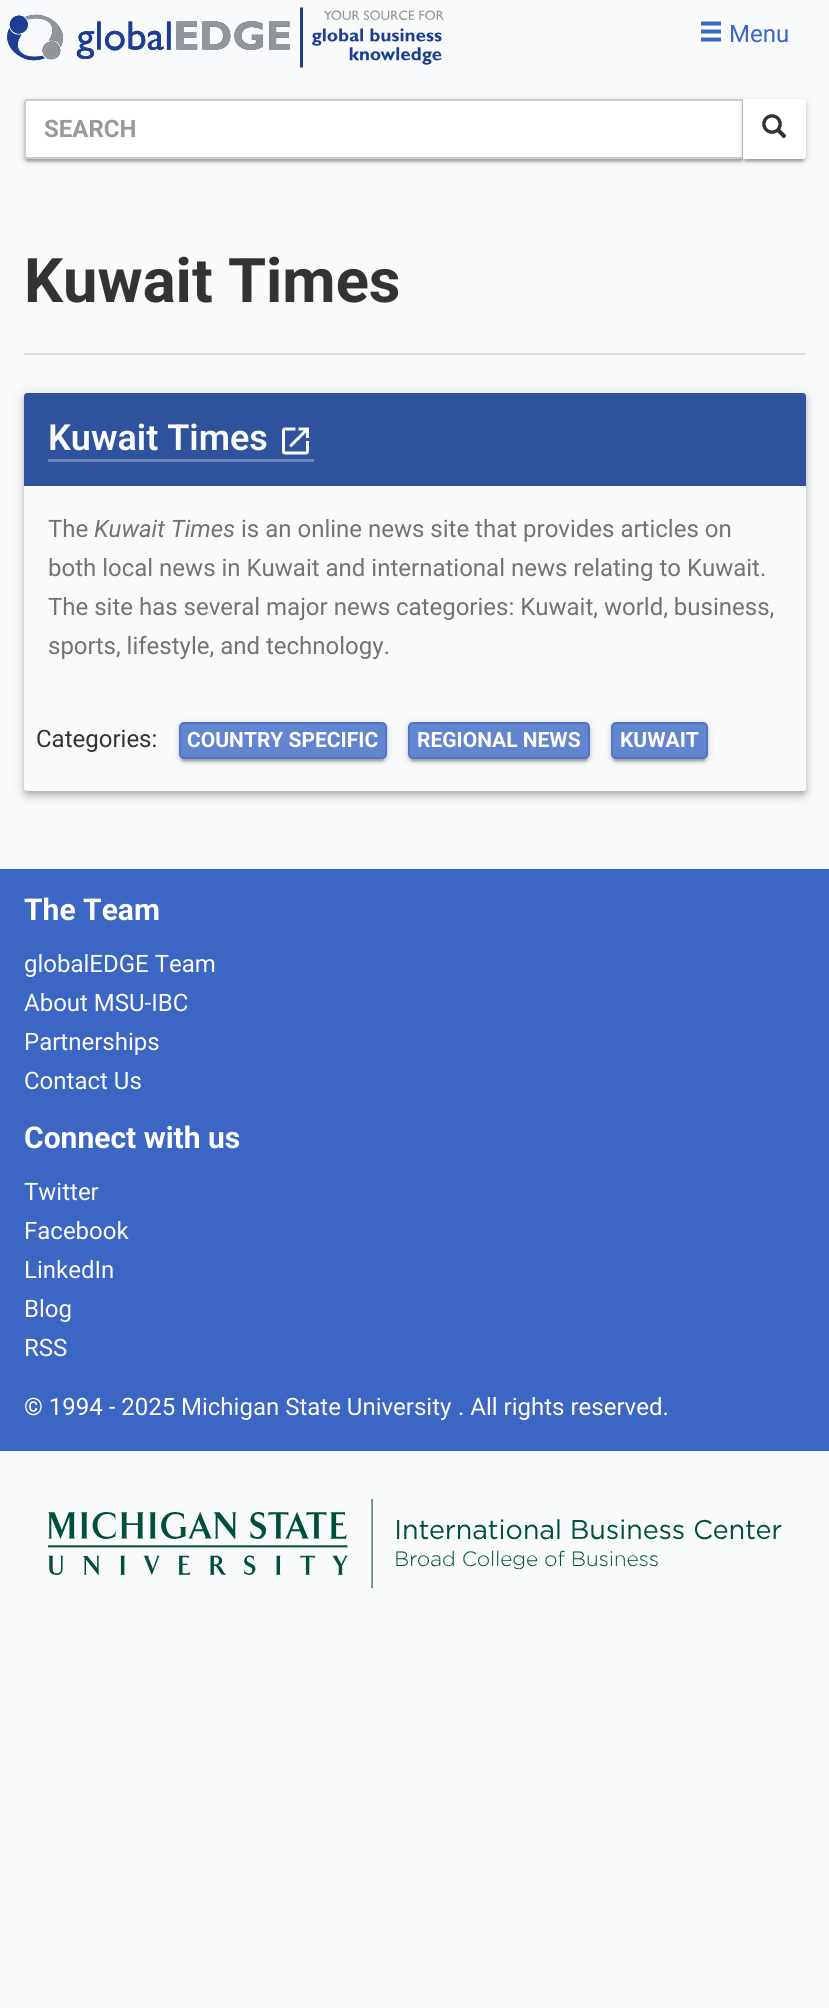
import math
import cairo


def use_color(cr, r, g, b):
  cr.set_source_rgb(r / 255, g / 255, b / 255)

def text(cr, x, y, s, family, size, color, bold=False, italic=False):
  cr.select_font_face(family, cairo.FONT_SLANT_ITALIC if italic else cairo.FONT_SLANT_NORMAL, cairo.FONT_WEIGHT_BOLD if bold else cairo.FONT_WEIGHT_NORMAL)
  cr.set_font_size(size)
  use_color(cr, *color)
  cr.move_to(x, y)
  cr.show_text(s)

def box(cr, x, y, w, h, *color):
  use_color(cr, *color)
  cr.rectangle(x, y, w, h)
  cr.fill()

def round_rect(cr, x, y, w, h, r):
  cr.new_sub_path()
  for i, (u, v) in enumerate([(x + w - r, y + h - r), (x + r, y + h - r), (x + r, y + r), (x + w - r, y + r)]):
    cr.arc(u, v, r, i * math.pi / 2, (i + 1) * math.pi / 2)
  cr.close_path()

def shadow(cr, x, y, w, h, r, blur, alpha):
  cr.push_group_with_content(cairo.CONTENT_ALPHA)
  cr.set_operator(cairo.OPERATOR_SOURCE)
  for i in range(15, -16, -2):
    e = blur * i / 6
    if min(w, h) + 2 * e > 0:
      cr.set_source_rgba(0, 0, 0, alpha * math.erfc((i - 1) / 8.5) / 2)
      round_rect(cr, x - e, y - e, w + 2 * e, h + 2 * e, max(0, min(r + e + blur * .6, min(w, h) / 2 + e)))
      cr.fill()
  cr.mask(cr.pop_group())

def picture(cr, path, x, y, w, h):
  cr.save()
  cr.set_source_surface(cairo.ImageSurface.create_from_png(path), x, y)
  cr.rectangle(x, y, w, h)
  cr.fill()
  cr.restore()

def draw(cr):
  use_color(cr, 249, 250, 251)
  cr.paint()
  picture(cr, "img_01.png", 7, 7, 437, 61)
  picture(cr, "img_02.png", 701, 21, 20, 21)
  use_color(cr, 0, 0, 0)
  shadow(cr, 24, 101, 720, 60, 3, 4, 0.12)
  shadow(cr, 27, 107, 714, 54, 0, 1, 0.2)
  shadow(cr, 24, 102, 720, 60, 3, 1.5, 0.14)
  use_color(cr, 255, 255, 255)
  cr.new_path()
  cr.move_to(27, 100)
  cr.line_to(743, 100)
  cr.line_to(743, 158)
  cr.line_to(27, 158)
  cr.curve_to(26, 158, 25, 157, 25, 156)
  cr.line_to(25, 102)
  cr.curve_to(25, 101, 26, 100, 27, 100)
  cr.close_path()
  cr.fill_preserve()
  use_color(cr, 204, 204, 204)
  cr.stroke()
  use_color(cr, 0, 0, 0)
  shadow(cr, 743, 101, 63, 60, 3, 4, 0.12)
  shadow(cr, 746, 107, 57, 54, 0, 1, 0.2)
  shadow(cr, 743, 102, 63, 60, 3, 1.5, 0.14)
  use_color(cr, 255, 255, 255)
  cr.new_path()
  cr.move_to(743, 99)
  cr.line_to(803, 99)
  cr.curve_to(804.5, 99, 806, 100.5, 806, 102)
  cr.line_to(806, 156)
  cr.curve_to(806, 157.5, 804.5, 159, 803, 159)
  cr.line_to(743, 159)
  cr.close_path()
  cr.fill()
  picture(cr, "img_03.png", 762, 114, 25, 25)
  box(cr, 24, 353, 782, 2, 221, 221, 221)
  cr.save()
  cr.set_fill_rule(cairo.FILL_RULE_EVEN_ODD)
  cr.new_path()
  cr.move_to(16, 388)
  cr.line_to(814, 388)
  cr.line_to(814, 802)
  cr.line_to(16, 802)
  cr.close_path()
  cr.move_to(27, 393)
  cr.line_to(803, 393)
  cr.curve_to(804.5, 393, 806, 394.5, 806, 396)
  cr.line_to(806, 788)
  cr.curve_to(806, 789.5, 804.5, 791, 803, 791)
  cr.line_to(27, 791)
  cr.curve_to(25.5, 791, 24, 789.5, 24, 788)
  cr.line_to(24, 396)
  cr.curve_to(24, 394.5, 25.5, 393, 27, 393)
  cr.close_path()
  cr.clip()
  use_color(cr, 0, 0, 0)
  shadow(cr, 26, 398, 778, 394, 1.5, 3, 0.2)
  cr.restore()
  cr.save()
  cr.set_fill_rule(cairo.FILL_RULE_EVEN_ODD)
  cr.new_path()
  cr.move_to(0, 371)
  cr.line_to(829, 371)
  cr.line_to(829, 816)
  cr.line_to(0, 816)
  cr.close_path()
  cr.move_to(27, 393)
  cr.line_to(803, 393)
  cr.curve_to(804.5, 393, 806, 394.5, 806, 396)
  cr.line_to(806, 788)
  cr.curve_to(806, 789.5, 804.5, 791, 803, 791)
  cr.line_to(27, 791)
  cr.curve_to(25.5, 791, 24, 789.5, 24, 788)
  cr.line_to(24, 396)
  cr.curve_to(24, 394.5, 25.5, 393, 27, 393)
  cr.close_path()
  cr.clip()
  use_color(cr, 0, 0, 0)
  shadow(cr, 24, 395, 782, 397, 3, 7.5, 0.12)
  cr.restore()
  cr.save()
  cr.set_fill_rule(cairo.FILL_RULE_EVEN_ODD)
  cr.new_path()
  cr.move_to(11, 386)
  cr.line_to(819, 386)
  cr.line_to(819, 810)
  cr.line_to(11, 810)
  cr.close_path()
  cr.move_to(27, 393)
  cr.line_to(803, 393)
  cr.curve_to(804.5, 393, 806, 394.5, 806, 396)
  cr.line_to(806, 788)
  cr.curve_to(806, 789.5, 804.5, 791, 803, 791)
  cr.line_to(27, 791)
  cr.curve_to(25.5, 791, 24, 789.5, 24, 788)
  cr.line_to(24, 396)
  cr.curve_to(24, 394.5, 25.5, 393, 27, 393)
  cr.close_path()
  cr.clip()
  use_color(cr, 0, 0, 0)
  shadow(cr, 24, 399, 782, 398, 3, 4, 0.14)
  cr.restore()
  use_color(cr, 47, 82, 157)
  cr.new_path()
  cr.move_to(27, 393)
  cr.line_to(803, 393)
  cr.curve_to(804.5, 393, 806, 394.5, 806, 396)
  cr.line_to(806, 486)
  cr.line_to(24, 486)
  cr.line_to(24, 396)
  cr.curve_to(24, 394.5, 25.5, 393, 27, 393)
  cr.close_path()
  cr.fill()
  box(cr, 48, 459, 266, 3, 108, 132, 185)
  picture(cr, "img_04.png", 282, 427, 27, 28)
  use_color(cr, 0, 0, 0)
  shadow(cr, 179, 723, 208, 38, 5, 4, 0.12)
  shadow(cr, 182, 729, 202, 32, 1.5, 1, 0.2)
  shadow(cr, 179, 725, 208, 37, 5, 1.5, 0.14)
  use_color(cr, 98, 133, 208)
  round_rect(cr, 180, 723, 206, 35, 4)
  cr.fill_preserve()
  use_color(cr, 79, 117, 202)
  cr.stroke()
  use_color(cr, 0, 0, 0)
  shadow(cr, 408, 723, 182, 38, 5, 4, 0.12)
  shadow(cr, 411, 729, 176, 32, 1.5, 1, 0.2)
  shadow(cr, 408, 725, 182, 37, 5, 1.5, 0.14)
  use_color(cr, 98, 133, 208)
  round_rect(cr, 409, 723, 180, 35, 4)
  cr.fill_preserve()
  use_color(cr, 79, 117, 202)
  cr.stroke()
  use_color(cr, 0, 0, 0)
  shadow(cr, 611, 723, 97, 38, 5, 4, 0.12)
  shadow(cr, 614, 729, 91, 32, 1.5, 1, 0.2)
  shadow(cr, 611, 725, 97, 37, 5, 1.5, 0.14)
  use_color(cr, 98, 133, 208)
  round_rect(cr, 612, 723, 95, 35, 4)
  cr.fill_preserve()
  use_color(cr, 79, 117, 202)
  cr.stroke()
  box(cr, 0, 869, 829, 582, 59, 102, 196)
  picture(cr, "img_05.png", 48, 1499, 734, 90)
  text(cr, 729, 42, "Menu", "Roboto", 24, (59, 102, 196))
  text(cr, 44, 137, "SEARCH", "Roboto", 24, (153, 153, 153), bold=True)
  text(cr, 24, 302, "Kuwait Times", "Roboto", 61.5, (51, 51, 51), bold=True)
  text(cr, 48, 450, "Kuwait Times", "Roboto SemiBold", 36, (249, 250, 251))
  text(cr, 48, 537, "The", "Roboto", 24, (115, 115, 115))
  text(cr, 94, 537, "Kuwait Times", "Roboto", 24, (115, 115, 115), italic=True)
  text(cr, 241, 537, "is an online news site that provides articles on", "Roboto", 24, (115, 115, 115))
  text(cr, 48, 576, "both local news in Kuwait and international news relating to Kuwait.", "Roboto", 24, (115, 115, 115))
  text(cr, 48, 615, "The site has several major news categories: Kuwait, world, business,", "Roboto", 24, (115, 115, 115))
  text(cr, 48, 654, "sports, lifestyle, and technology.", "Roboto", 24, (115, 115, 115))
  text(cr, 36, 747, "Categories:", "Roboto", 24, (51, 51, 51))
  text(cr, 187, 747, "COUNTRY SPECIFIC", "Roboto", 21, (255, 255, 255), bold=True)
  text(cr, 417, 747, "REGIONAL NEWS", "Roboto", 21, (255, 255, 255), bold=True)
  text(cr, 620, 747, "KUWAIT", "Roboto", 21, (255, 255, 255), bold=True)
  text(cr, 24, 920, "The Team", "Roboto", 30, (255, 255, 255), bold=True)
  text(cr, 24, 972, "globalEDGE Team", "Roboto", 24, (249, 250, 251))
  text(cr, 24, 1011, "About MSU-IBC", "Roboto", 24, (249, 250, 251))
  text(cr, 24, 1050, "Partnerships", "Roboto", 24, (249, 250, 251))
  text(cr, 24, 1089, "Contact Us", "Roboto", 24, (249, 250, 251))
  text(cr, 24, 1148, "Connect with us", "Roboto", 30, (255, 255, 255), bold=True)
  text(cr, 24, 1200, "Twitter", "Roboto", 24, (249, 250, 251))
  text(cr, 24, 1239, "Facebook", "Roboto", 24, (249, 250, 251))
  text(cr, 24, 1278, "LinkedIn", "Roboto", 24, (249, 250, 251))
  text(cr, 24, 1317, "Blog", "Roboto", 24, (249, 250, 251))
  text(cr, 24, 1356, "RSS", "Roboto", 24, (249, 250, 251))
  text(cr, 24, 1415, "© 1994 - 2025", "Roboto", 24, (255, 255, 255))
  text(cr, 181, 1415, "Michigan State University", "Roboto", 24, (249, 250, 251))
  text(cr, 458, 1415, ". All rights reserved.", "Roboto", 24, (255, 255, 255))


surface = cairo.ImageSurface(cairo.FORMAT_RGB24, 829, 2008)
cr = cairo.Context(surface)
options = cairo.FontOptions()
options.set_hint_metrics(cairo.HINT_METRICS_OFF)
options.set_hint_style(cairo.HINT_STYLE_NONE)
cr.set_font_options(options)
cr.set_miter_limit(4)
draw(cr)
surface.write_to_png("out.png")
